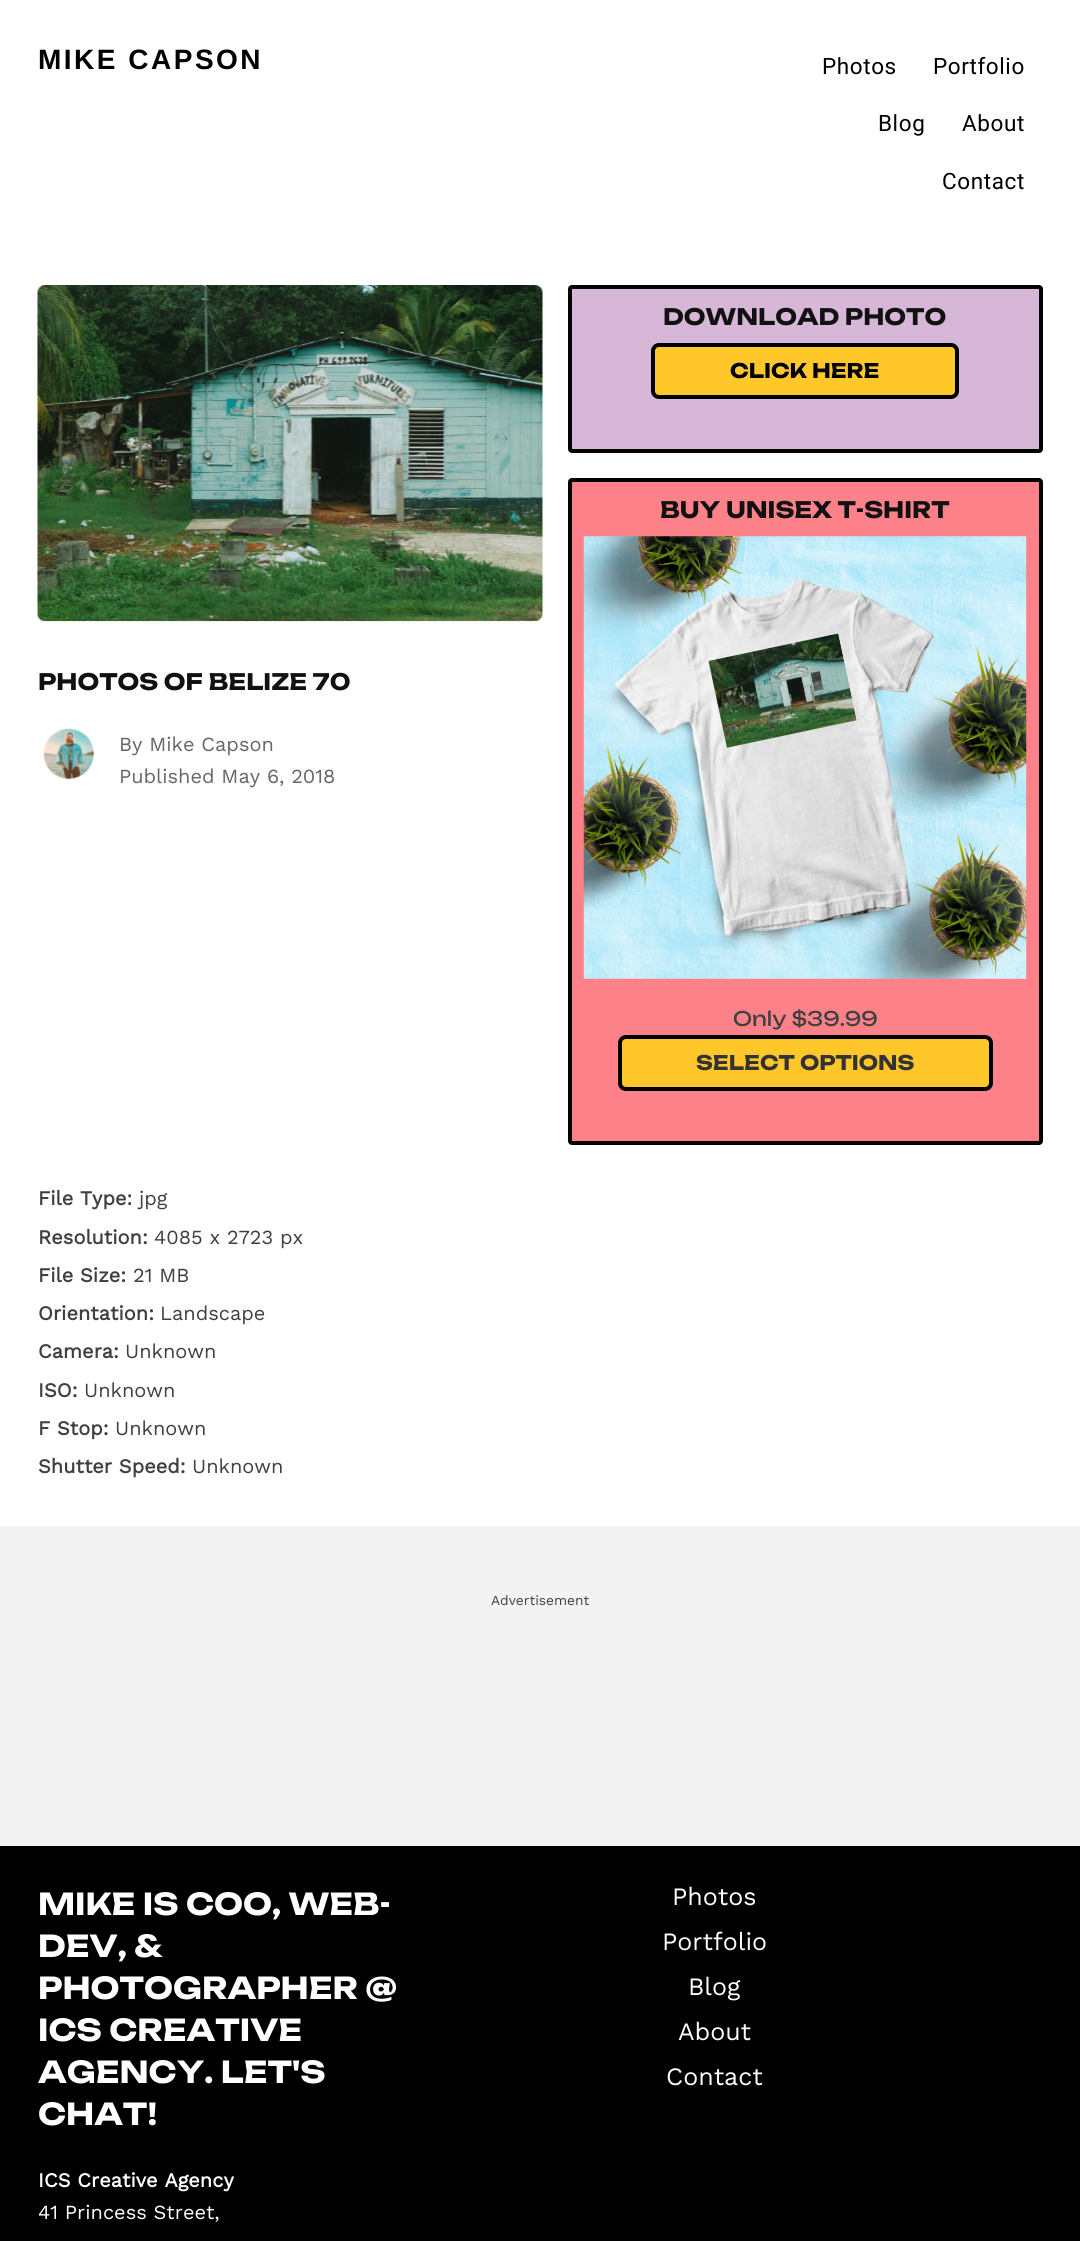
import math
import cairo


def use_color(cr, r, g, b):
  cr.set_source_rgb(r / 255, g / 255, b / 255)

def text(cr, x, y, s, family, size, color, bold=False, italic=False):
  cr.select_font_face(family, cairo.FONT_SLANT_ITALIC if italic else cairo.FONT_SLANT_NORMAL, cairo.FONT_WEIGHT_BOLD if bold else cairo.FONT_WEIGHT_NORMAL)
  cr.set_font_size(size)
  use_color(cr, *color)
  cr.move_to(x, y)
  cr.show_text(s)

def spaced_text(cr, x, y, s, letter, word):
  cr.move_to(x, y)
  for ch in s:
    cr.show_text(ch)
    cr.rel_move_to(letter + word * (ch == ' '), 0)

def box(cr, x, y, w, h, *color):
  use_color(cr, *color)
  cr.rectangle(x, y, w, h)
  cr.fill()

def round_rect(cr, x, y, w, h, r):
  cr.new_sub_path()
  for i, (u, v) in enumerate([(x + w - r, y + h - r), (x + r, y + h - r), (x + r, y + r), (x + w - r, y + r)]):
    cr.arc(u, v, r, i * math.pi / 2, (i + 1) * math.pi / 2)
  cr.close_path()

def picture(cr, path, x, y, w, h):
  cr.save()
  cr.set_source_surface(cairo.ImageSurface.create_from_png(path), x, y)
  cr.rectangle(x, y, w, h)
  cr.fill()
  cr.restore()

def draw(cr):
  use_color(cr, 255, 255, 255)
  cr.paint()
  picture(cr, "img_01.png", 37, 285, 506, 337)
  picture(cr, "img_02.png", 43, 728, 51, 51)
  use_color(cr, 215, 183, 215)
  round_rect(cr, 570, 287, 471, 164, 2)
  cr.fill_preserve()
  use_color(cr, 0, 0, 0)
  cr.set_line_width(4)
  cr.stroke()
  use_color(cr, 255, 199, 42)
  round_rect(cr, 653, 345, 304, 52, 6)
  cr.fill_preserve()
  use_color(cr, 0, 0, 0)
  cr.stroke()
  use_color(cr, 253, 129, 137)
  round_rect(cr, 570, 480, 471, 663, 2)
  cr.fill_preserve()
  use_color(cr, 0, 0, 0)
  cr.stroke()
  picture(cr, "img_03.png", 583, 536, 444, 443)
  picture(cr, "img_04.png", 708, 633, 149, 115)
  use_color(cr, 255, 199, 42)
  round_rect(cr, 620, 1037, 371, 52, 6)
  cr.fill_preserve()
  use_color(cr, 0, 0, 0)
  cr.stroke()
  box(cr, 0, 1526, 1080, 320, 243, 243, 243)
  box(cr, 0, 1846, 1080, 395, 0, 0, 0)
  cr.select_font_face("Liberation Sans", cairo.FONT_SLANT_NORMAL, cairo.FONT_WEIGHT_BOLD)
  cr.set_font_size(28)
  spaced_text(cr, 38, 69, "MIKE CAPSON", 2.5, 0)
  cr.select_font_face("Roboto")
  cr.set_font_size(22.5)
  spaced_text(cr, 822, 74, "Photos", 0.6, 0)
  spaced_text(cr, 933, 74, "Portfolio", 0.6, 0)
  spaced_text(cr, 878, 131, "Blog", 0.6, 0)
  spaced_text(cr, 962, 131, "About", 0.6, 0)
  spaced_text(cr, 942, 189, "Contact", 0.6, 0)
  text(cr, 38, 690, "PHOTOS OF BELIZE 70", "Unbounded", 22.5, (17, 17, 17), bold=True)
  text(cr, 119, 751, "By Mike Capson", "Work Sans", 20, (102, 102, 102))
  text(cr, 119, 783, "Published May 6, 2018", "Work Sans", 20, (102, 102, 102))
  text(cr, 663, 325, "DOWNLOAD PHOTO", "Unbounded", 22.5, (17, 17, 17), bold=True)
  text(cr, 730, 378, "CLICK HERE", "Unbounded", 20, (0, 0, 0), bold=True)
  text(cr, 660, 518, "BUY UNISEX T-SHIRT", "Unbounded", 22.5, (17, 17, 17), bold=True)
  text(cr, 733, 1026, "Only $39.99", "Unbounded", 20, (64, 64, 64))
  text(cr, 696, 1070, "SELECT OPTIONS", "Unbounded", 20, (51, 51, 51), bold=True)
  text(cr, 38, 1205, "File Type:", "Work Sans", 20, (64, 64, 64), bold=True)
  text(cr, 139, 1205, "jpg", "Work Sans", 20, (64, 64, 64))
  text(cr, 38, 1244, "Resolution:", "Work Sans", 20, (64, 64, 64), bold=True)
  text(cr, 154, 1244, "4085 x 2723 px", "Work Sans", 20, (64, 64, 64))
  text(cr, 38, 1282, "File Size:", "Work Sans", 20, (64, 64, 64), bold=True)
  text(cr, 133, 1282, "21 MB", "Work Sans", 20, (64, 64, 64))
  text(cr, 38, 1320, "Orientation:", "Work Sans", 20, (64, 64, 64), bold=True)
  text(cr, 160, 1320, "Landscape", "Work Sans", 20, (64, 64, 64))
  text(cr, 38, 1358, "Camera:", "Work Sans", 20, (64, 64, 64), bold=True)
  text(cr, 125, 1358, "Unknown", "Work Sans", 20, (64, 64, 64))
  text(cr, 38, 1397, "ISO:", "Work Sans", 20, (64, 64, 64), bold=True)
  text(cr, 84, 1397, "Unknown", "Work Sans", 20, (64, 64, 64))
  text(cr, 38, 1435, "F Stop:", "Work Sans", 20, (64, 64, 64), bold=True)
  text(cr, 115, 1435, "Unknown", "Work Sans", 20, (64, 64, 64))
  text(cr, 38, 1473, "Shutter Speed:", "Work Sans", 20, (64, 64, 64), bold=True)
  text(cr, 192, 1473, "Unknown", "Work Sans", 20, (64, 64, 64))
  text(cr, 491, 1605, "Advertisement", "Work Sans", 13.75, (64, 64, 64))
  text(cr, 38, 1915, "MIKE IS COO, WEB-", "Unbounded", 30, (255, 255, 255), bold=True)
  text(cr, 38, 1957, "DEV, &", "Unbounded", 30, (255, 255, 255), bold=True)
  text(cr, 38, 1999, "PHOTOGRAPHER @", "Unbounded", 30, (255, 255, 255), bold=True)
  text(cr, 38, 2041, "ICS CREATIVE", "Unbounded", 30, (255, 255, 255), bold=True)
  text(cr, 38, 2083, "AGENCY. LET'S", "Unbounded", 30, (255, 255, 255), bold=True)
  text(cr, 38, 2125, "CHAT!", "Unbounded", 30, (255, 255, 255), bold=True)
  text(cr, 38, 2187, "ICS Creative Agency", "Work Sans", 20, (255, 255, 255), bold=True)
  text(cr, 38, 2219, "41 Princess Street,", "Work Sans", 20, (255, 255, 255))
  text(cr, 672, 1905, "Photos", "Work Sans", 25, (255, 255, 255))
  text(cr, 662, 1950, "Portfolio", "Work Sans", 25, (255, 255, 255))
  text(cr, 688, 1995, "Blog", "Work Sans", 25, (255, 255, 255))
  text(cr, 678, 2040, "About", "Work Sans", 25, (255, 255, 255))
  text(cr, 666, 2085, "Contact", "Work Sans", 25, (255, 255, 255))


surface = cairo.ImageSurface(cairo.FORMAT_RGB24, 1080, 2241)
cr = cairo.Context(surface)
options = cairo.FontOptions()
options.set_hint_metrics(cairo.HINT_METRICS_OFF)
options.set_hint_style(cairo.HINT_STYLE_NONE)
cr.set_font_options(options)
cr.set_miter_limit(4)
draw(cr)
surface.write_to_png("out.png")
